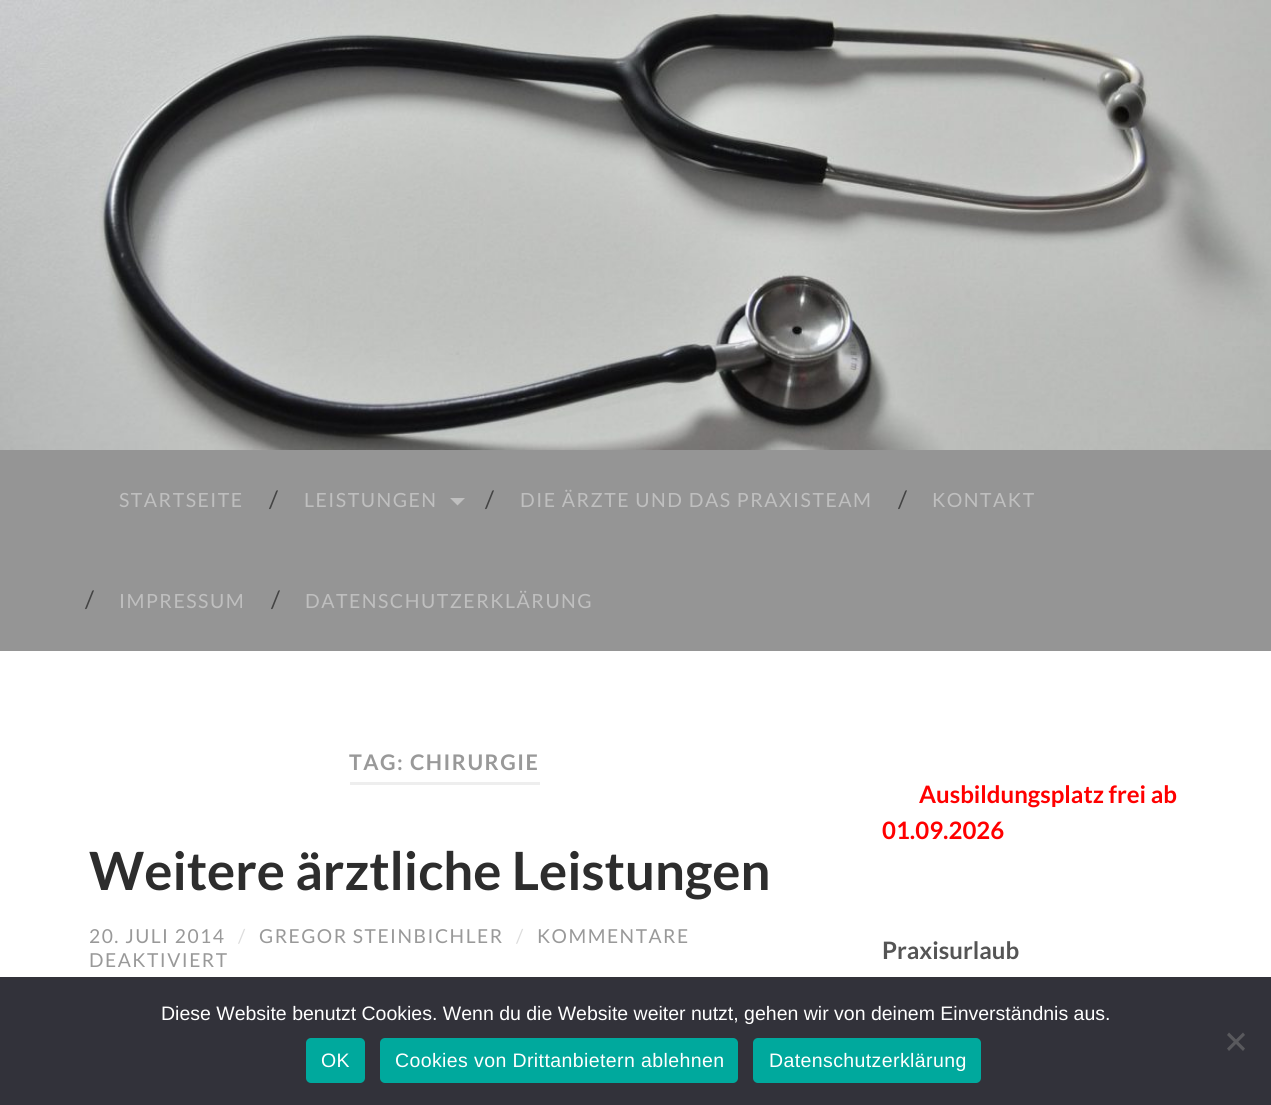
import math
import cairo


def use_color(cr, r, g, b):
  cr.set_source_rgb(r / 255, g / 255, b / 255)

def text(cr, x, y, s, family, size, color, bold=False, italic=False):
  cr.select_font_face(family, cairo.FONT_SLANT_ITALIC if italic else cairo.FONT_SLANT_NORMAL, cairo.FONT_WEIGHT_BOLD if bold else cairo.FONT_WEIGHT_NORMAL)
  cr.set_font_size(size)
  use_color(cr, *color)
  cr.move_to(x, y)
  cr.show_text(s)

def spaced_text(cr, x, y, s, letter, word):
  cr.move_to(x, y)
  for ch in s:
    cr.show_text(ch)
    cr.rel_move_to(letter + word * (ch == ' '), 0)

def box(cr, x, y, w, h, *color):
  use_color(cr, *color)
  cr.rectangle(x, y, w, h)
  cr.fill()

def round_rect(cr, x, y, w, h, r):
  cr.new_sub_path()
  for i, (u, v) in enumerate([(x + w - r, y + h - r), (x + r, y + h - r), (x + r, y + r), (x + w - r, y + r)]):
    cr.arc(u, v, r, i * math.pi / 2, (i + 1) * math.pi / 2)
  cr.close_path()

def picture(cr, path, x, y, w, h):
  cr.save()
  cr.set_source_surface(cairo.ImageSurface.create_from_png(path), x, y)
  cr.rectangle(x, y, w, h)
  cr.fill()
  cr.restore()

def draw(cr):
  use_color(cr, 255, 255, 255)
  cr.paint()
  picture(cr, "img_01.png", 0, 0, 1271, 450)
  box(cr, 0, 450, 1271, 201, 149, 149, 149)
  use_color(cr, 191, 191, 191)
  cr.new_path()
  cr.move_to(450, 498)
  cr.line_to(465, 498)
  cr.line_to(457.5, 505.5)
  cr.close_path()
  cr.fill()
  box(cr, 350, 782, 190, 3, 238, 238, 238)
  box(cr, 0, 977, 1271, 128, 50, 50, 58)
  use_color(cr, 89, 89, 93)
  cr.new_path()
  cr.move_to(1243, 1032.5)
  cr.line_to(1245, 1035)
  cr.line_to(1229, 1051)
  cr.line_to(1227, 1048.5)
  cr.close_path()
  cr.fill()
  cr.new_path()
  cr.move_to(1227, 1035)
  cr.line_to(1229, 1032.5)
  cr.line_to(1245, 1048.5)
  cr.line_to(1243, 1051)
  cr.close_path()
  cr.fill()
  use_color(cr, 0, 169, 157)
  round_rect(cr, 306, 1038, 59, 45, 5)
  cr.fill()
  round_rect(cr, 380, 1038, 358, 45, 5)
  cr.fill()
  round_rect(cr, 753, 1038, 228, 45, 5)
  cr.fill()
  cr.select_font_face("Lato")
  cr.set_font_size(19.5)
  use_color(cr, 191, 191, 191)
  spaced_text(cr, 119, 507, "STARTSEITE", 1.5, 0)
  text(cr, 269, 508, "/", "Lato", 24, (68, 68, 68))
  cr.set_font_size(19.5)
  use_color(cr, 191, 191, 191)
  spaced_text(cr, 304, 507, "LEISTUNGEN", 1.5, 0)
  text(cr, 485, 508, "/", "Lato", 24, (68, 68, 68))
  cr.set_font_size(19.5)
  use_color(cr, 191, 191, 191)
  spaced_text(cr, 520, 507, "DIE ÄRZTE UND DAS PRAXISTEAM", 1.5, 0)
  text(cr, 898, 508, "/", "Lato", 24, (68, 68, 68))
  cr.set_font_size(19.5)
  use_color(cr, 191, 191, 191)
  spaced_text(cr, 932, 507, "KONTAKT", 1.5, 0)
  text(cr, 85, 608, "/", "Lato", 24, (68, 68, 68))
  cr.set_font_size(19.5)
  use_color(cr, 191, 191, 191)
  spaced_text(cr, 119, 608, "IMPRESSUM", 1.5, 0)
  text(cr, 271, 608, "/", "Lato", 24, (68, 68, 68))
  cr.set_font_size(19.5)
  use_color(cr, 191, 191, 191)
  spaced_text(cr, 305, 608, "DATENSCHUTZERKLÄRUNG", 1.5, 0)
  cr.select_font_face("Lato", cairo.FONT_SLANT_NORMAL, cairo.FONT_WEIGHT_BOLD)
  cr.set_font_size(21.5)
  use_color(cr, 153, 153, 153)
  spaced_text(cr, 349, 770, "TAG: CHIRURGIE", 1.5, 0)
  text(cr, 89, 890, "Weitere ärztliche Leistungen", "Lato", 52.75, (45, 45, 45), bold=True)
  cr.select_font_face("Lato")
  cr.set_font_size(19.25)
  use_color(cr, 153, 153, 153)
  spaced_text(cr, 89, 943, "20. JULI 2014", 1.5, 0)
  use_color(cr, 221, 221, 221)
  spaced_text(cr, 238, 943, "/", 1.5, 0)
  use_color(cr, 153, 153, 153)
  spaced_text(cr, 259, 943, "GREGOR STEINBICHLER", 1.5, 0)
  use_color(cr, 221, 221, 221)
  spaced_text(cr, 516, 943, "/", 1.5, 0)
  use_color(cr, 153, 153, 153)
  spaced_text(cr, 537, 943, "KOMMENTARE", 1.5, 0)
  spaced_text(cr, 89, 967, "DEAKTIVIERT", 1.5, 0)
  text(cr, 919, 803, "Ausbildungsplatz frei ab", "Lato", 24, (255, 0, 0), bold=True)
  text(cr, 882, 839, "01.09.2026", "Lato", 24, (255, 0, 0), bold=True)
  text(cr, 882, 959, "Praxisurlaub", "Lato", 24, (85, 85, 85), bold=True)
  text(cr, 161, 1020, "Diese Website benutzt Cookies. Wenn du die Website weiter nutzt, gehen wir von deinem Einverständnis aus.", "Liberation Sans", 19.5, (255, 255, 255))
  spaced_text(cr, 321, 1067, "OK", 0.4, 0)
  spaced_text(cr, 395, 1067, "Cookies von Drittanbietern ablehnen", 0.4, 0)
  spaced_text(cr, 769, 1067, "Datenschutzerklärung", 0.4, 0)


surface = cairo.ImageSurface(cairo.FORMAT_RGB24, 1271, 1105)
cr = cairo.Context(surface)
options = cairo.FontOptions()
options.set_hint_metrics(cairo.HINT_METRICS_OFF)
options.set_hint_style(cairo.HINT_STYLE_NONE)
cr.set_font_options(options)
cr.set_miter_limit(4)
draw(cr)
surface.write_to_png("out.png")
